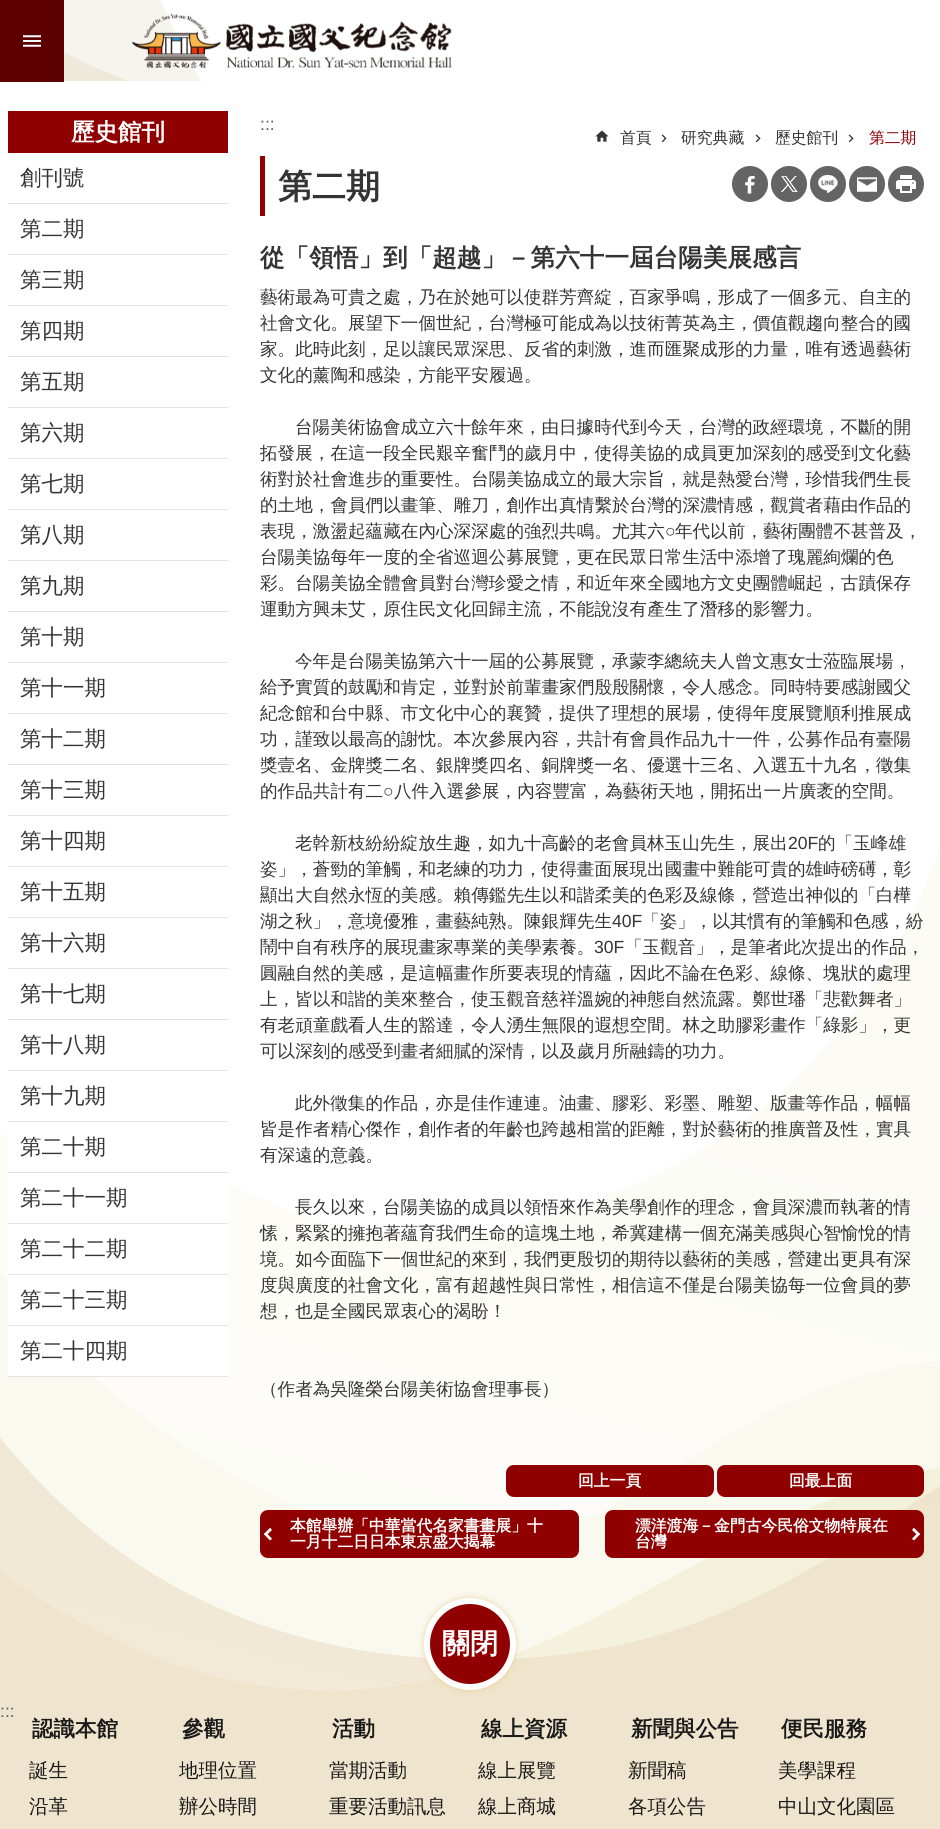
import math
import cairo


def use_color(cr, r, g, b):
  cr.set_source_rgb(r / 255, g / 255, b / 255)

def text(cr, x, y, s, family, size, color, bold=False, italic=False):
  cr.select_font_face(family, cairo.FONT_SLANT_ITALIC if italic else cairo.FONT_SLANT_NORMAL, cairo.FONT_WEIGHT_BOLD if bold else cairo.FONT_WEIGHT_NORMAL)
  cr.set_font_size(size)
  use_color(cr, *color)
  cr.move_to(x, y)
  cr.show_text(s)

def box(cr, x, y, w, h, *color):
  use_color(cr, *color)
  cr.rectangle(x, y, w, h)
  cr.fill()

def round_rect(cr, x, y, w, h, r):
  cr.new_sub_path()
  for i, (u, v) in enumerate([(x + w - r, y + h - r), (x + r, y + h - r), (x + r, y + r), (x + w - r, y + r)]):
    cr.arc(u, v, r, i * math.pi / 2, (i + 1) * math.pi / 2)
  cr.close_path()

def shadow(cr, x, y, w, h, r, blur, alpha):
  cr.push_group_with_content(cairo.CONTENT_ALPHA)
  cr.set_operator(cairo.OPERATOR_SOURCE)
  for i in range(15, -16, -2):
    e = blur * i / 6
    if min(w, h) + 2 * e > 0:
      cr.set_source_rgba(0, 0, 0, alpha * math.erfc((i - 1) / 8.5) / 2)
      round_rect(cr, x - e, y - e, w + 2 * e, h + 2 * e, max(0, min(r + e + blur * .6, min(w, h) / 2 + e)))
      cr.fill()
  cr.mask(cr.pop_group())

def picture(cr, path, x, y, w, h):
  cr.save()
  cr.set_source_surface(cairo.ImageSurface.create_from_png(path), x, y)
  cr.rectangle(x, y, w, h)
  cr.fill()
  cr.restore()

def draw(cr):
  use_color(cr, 255, 255, 255)
  cr.paint()
  box(cr, 0, 0, 64, 82, 93, 0, 0)
  picture(cr, "img_01.png", 23, 35, 18, 12)
  picture(cr, "img_02.png", 64, 0, 137, 81)
  picture(cr, "img_03.png", 132, 13, 320, 56)
  picture(cr, "img_04.png", 0, 847, 940, 851)
  box(cr, 8, 111, 220, 42, 144, 0, 0)
  box(cr, 8, 1135, 220, 241, 255, 255, 255)
  box(cr, 8, 203, 220, 1, 228, 228, 228)
  box(cr, 8, 254, 220, 1, 228, 228, 228)
  box(cr, 8, 305, 220, 1, 228, 228, 228)
  box(cr, 8, 356, 220, 1, 228, 228, 228)
  box(cr, 8, 407, 220, 1, 228, 228, 228)
  box(cr, 8, 458, 220, 1, 228, 228, 228)
  box(cr, 8, 509, 220, 1, 228, 228, 228)
  box(cr, 8, 560, 220, 1, 228, 228, 228)
  box(cr, 8, 611, 220, 1, 228, 228, 228)
  box(cr, 8, 662, 220, 1, 228, 228, 228)
  box(cr, 8, 713, 220, 1, 228, 228, 228)
  box(cr, 8, 764, 220, 1, 228, 228, 228)
  box(cr, 8, 815, 220, 1, 228, 228, 228)
  box(cr, 8, 866, 220, 1, 228, 228, 228)
  box(cr, 8, 917, 220, 1, 228, 228, 228)
  box(cr, 8, 968, 220, 1, 228, 228, 228)
  box(cr, 8, 1019, 220, 1, 228, 228, 228)
  box(cr, 8, 1070, 220, 1, 228, 228, 228)
  box(cr, 8, 1121, 220, 1, 228, 228, 228)
  box(cr, 8, 1172, 220, 1, 228, 228, 228)
  box(cr, 8, 1223, 220, 1, 228, 228, 228)
  box(cr, 8, 1274, 220, 1, 228, 228, 228)
  box(cr, 8, 1325, 220, 1, 228, 228, 228)
  box(cr, 8, 1376, 220, 1, 228, 228, 228)
  picture(cr, "img_05.png", 595, 130, 14, 12)
  picture(cr, "img_06.png", 661, 134, 6, 9)
  picture(cr, "img_06.png", 755, 134, 6, 9)
  picture(cr, "img_06.png", 848, 134, 6, 9)
  box(cr, 260, 156, 5, 60, 144, 0, 0)
  use_color(cr, 100, 100, 100)
  cr.arc(750, 184, 18, 0, 2 * math.pi)
  cr.fill()
  picture(cr, "img_07.png", 745, 176, 10, 18)
  cr.arc(789, 184, 18, 0, 2 * math.pi)
  cr.fill()
  picture(cr, "img_08.png", 781, 176, 17, 16)
  cr.arc(828, 184, 18, 0, 2 * math.pi)
  cr.fill()
  picture(cr, "img_09.png", 818, 175, 20, 18)
  cr.arc(867, 184, 18, 0, 2 * math.pi)
  cr.fill()
  picture(cr, "img_10.png", 857, 177, 20, 15)
  cr.arc(906, 184, 18, 0, 2 * math.pi)
  cr.fill()
  picture(cr, "img_11.png", 896, 175, 20, 18)
  use_color(cr, 144, 0, 0)
  round_rect(cr, 506, 1465, 208, 32, 8)
  cr.fill()
  round_rect(cr, 717, 1465, 207, 32, 8)
  cr.fill()
  round_rect(cr, 260, 1510, 319, 48, 8)
  cr.fill()
  picture(cr, "img_12.png", 264, 1528, 9, 13)
  round_rect(cr, 605, 1510, 319, 48, 8)
  cr.fill()
  picture(cr, "img_13.png", 911, 1528, 9, 13)
  box(cr, 0, 1698, 940, 131, 239, 229, 206)
  use_color(cr, 230, 202, 141)
  shadow(cr, 424, 1598, 92, 92, 46, 3, 0.8)
  use_color(cr, 144, 0, 0)
  cr.arc(470, 1644, 43, 0, 2 * math.pi)
  cr.fill_preserve()
  use_color(cr, 255, 255, 255)
  cr.set_line_width(6)
  cr.stroke()
  text(cr, 71, 140, "歷史館刊", "WenQuanYi Zen Hei", 23.5, (255, 255, 255), bold=True)
  text(cr, 20, 185, "創刊號", "WenQuanYi Zen Hei Medium", 21.5, (52, 52, 52))
  text(cr, 20, 236, "第二期", "WenQuanYi Zen Hei Medium", 21.5, (52, 52, 52))
  text(cr, 20, 287, "第三期", "WenQuanYi Zen Hei Medium", 21.5, (52, 52, 52))
  text(cr, 20, 338, "第四期", "WenQuanYi Zen Hei Medium", 21.5, (52, 52, 52))
  text(cr, 20, 389, "第五期", "WenQuanYi Zen Hei Medium", 21.5, (52, 52, 52))
  text(cr, 20, 440, "第六期", "WenQuanYi Zen Hei Medium", 21.5, (52, 52, 52))
  text(cr, 20, 491, "第七期", "WenQuanYi Zen Hei Medium", 21.5, (52, 52, 52))
  text(cr, 20, 542, "第八期", "WenQuanYi Zen Hei Medium", 21.5, (52, 52, 52))
  text(cr, 20, 593, "第九期", "WenQuanYi Zen Hei Medium", 21.5, (52, 52, 52))
  text(cr, 20, 644, "第十期", "WenQuanYi Zen Hei Medium", 21.5, (52, 52, 52))
  text(cr, 20, 695, "第十一期", "WenQuanYi Zen Hei Medium", 21.5, (52, 52, 52))
  text(cr, 20, 746, "第十二期", "WenQuanYi Zen Hei Medium", 21.5, (52, 52, 52))
  text(cr, 20, 797, "第十三期", "WenQuanYi Zen Hei Medium", 21.5, (52, 52, 52))
  text(cr, 20, 848, "第十四期", "WenQuanYi Zen Hei Medium", 21.5, (52, 52, 52))
  text(cr, 20, 899, "第十五期", "WenQuanYi Zen Hei Medium", 21.5, (52, 52, 52))
  text(cr, 20, 950, "第十六期", "WenQuanYi Zen Hei Medium", 21.5, (52, 52, 52))
  text(cr, 20, 1001, "第十七期", "WenQuanYi Zen Hei Medium", 21.5, (52, 52, 52))
  text(cr, 20, 1052, "第十八期", "WenQuanYi Zen Hei Medium", 21.5, (52, 52, 52))
  text(cr, 20, 1103, "第十九期", "WenQuanYi Zen Hei Medium", 21.5, (52, 52, 52))
  text(cr, 20, 1154, "第二十期", "WenQuanYi Zen Hei Medium", 21.5, (52, 52, 52))
  text(cr, 20, 1205, "第二十一期", "WenQuanYi Zen Hei Medium", 21.5, (52, 52, 52))
  text(cr, 20, 1256, "第二十二期", "WenQuanYi Zen Hei Medium", 21.5, (52, 52, 52))
  text(cr, 20, 1307, "第二十三期", "WenQuanYi Zen Hei Medium", 21.5, (52, 52, 52))
  text(cr, 20, 1358, "第二十四期", "WenQuanYi Zen Hei Medium", 21.5, (52, 52, 52))
  text(cr, 260, 130, ":::", "Liberation Sans", 17.6, (88, 88, 88))
  text(cr, 620, 143, "首頁", "WenQuanYi Zen Hei Medium", 15.8, (52, 52, 52))
  text(cr, 681, 143, "研究典藏", "WenQuanYi Zen Hei Medium", 15.8, (52, 52, 52))
  text(cr, 775, 143, "歷史館刊", "WenQuanYi Zen Hei Medium", 15.8, (52, 52, 52))
  text(cr, 869, 143, "第二期", "WenQuanYi Zen Hei Medium", 15.8, (144, 0, 0))
  text(cr, 278, 198, "第二期", "WenQuanYi Zen Hei", 34, (52, 52, 52), bold=True)
  text(cr, 260, 266, "從「領悟」到「超越」－第六十一屆台陽美展感言", "WenQuanYi Zen Hei", 24.6, (52, 52, 52), bold=True)
  text(cr, 260, 303, "藝術最為可貴之處，乃在於她可以使群芳齊綻，百家爭鳴，形成了一個多元、自主的", "WenQuanYi Zen Hei Medium", 17.6, (52, 52, 52))
  text(cr, 260, 329, "社會文化。展望下一個世紀，台灣極可能成為以技術菁英為主，價值觀趨向整合的國", "WenQuanYi Zen Hei Medium", 17.6, (52, 52, 52))
  text(cr, 260, 355, "家。此時此刻，足以讓民眾深思、反省的刺激，進而匯聚成形的力量，唯有透過藝術", "WenQuanYi Zen Hei Medium", 17.6, (52, 52, 52))
  text(cr, 260, 381, "文化的薰陶和感染，方能平安履過。", "WenQuanYi Zen Hei Medium", 17.6, (52, 52, 52))
  text(cr, 295, 433, "台陽美術協會成立六十餘年來，由日據時代到今天，台灣的政經環境，不斷的開", "WenQuanYi Zen Hei Medium", 17.6, (52, 52, 52))
  text(cr, 260, 459, "拓發展，在這一段全民艱辛奮鬥的歲月中，使得美協的成員更加深刻的感受到文化藝", "WenQuanYi Zen Hei Medium", 17.6, (52, 52, 52))
  text(cr, 260, 485, "術對於社會進步的重要性。台陽美協成立的最大宗旨，就是熱愛台灣，珍惜我們生長", "WenQuanYi Zen Hei Medium", 17.6, (52, 52, 52))
  text(cr, 260, 511, "的土地，會員們以畫筆、雕刀，創作出真情繫於台灣的深濃情感，觀賞者藉由作品的", "WenQuanYi Zen Hei Medium", 17.6, (52, 52, 52))
  text(cr, 260, 537, "表現，激盪起蘊藏在內心深深處的強烈共鳴。尤其六", "WenQuanYi Zen Hei Medium", 17.6, (52, 52, 52))
  text(cr, 665, 537, "○", "Liberation Sans", 17.6, (52, 52, 52))
  text(cr, 675, 537, "年代以前，藝術團體不甚普及，", "WenQuanYi Zen Hei Medium", 17.6, (52, 52, 52))
  text(cr, 260, 563, "台陽美協每年一度的全省巡迴公募展覽，更在民眾日常生活中添增了瑰麗絢爛的色", "WenQuanYi Zen Hei Medium", 17.6, (52, 52, 52))
  text(cr, 260, 589, "彩。台陽美協全體會員對台灣珍愛之情，和近年來全國地方文史團體崛起，古蹟保存", "WenQuanYi Zen Hei Medium", 17.6, (52, 52, 52))
  text(cr, 260, 615, "運動方興未艾，原住民文化回歸主流，不能說沒有產生了潛移的影響力。", "WenQuanYi Zen Hei Medium", 17.6, (52, 52, 52))
  text(cr, 295, 667, "今年是台陽美協第六十一屆的公募展覽，承蒙李總統夫人曾文惠女士蒞臨展場，", "WenQuanYi Zen Hei Medium", 17.6, (52, 52, 52))
  text(cr, 260, 693, "給予實質的鼓勵和肯定，並對於前輩畫家們殷殷關懷，令人感念。同時特要感謝國父", "WenQuanYi Zen Hei Medium", 17.6, (52, 52, 52))
  text(cr, 260, 719, "紀念館和台中縣、市文化中心的襄贊，提供了理想的展場，使得年度展覽順利推展成", "WenQuanYi Zen Hei Medium", 17.6, (52, 52, 52))
  text(cr, 260, 745, "功，謹致以最高的謝忱。本次參展內容，共計有會員作品九十一件，公募作品有臺陽", "WenQuanYi Zen Hei Medium", 17.6, (52, 52, 52))
  text(cr, 260, 771, "獎壹名、金牌獎二名、銀牌獎四名、銅牌獎一名、優選十三名、入選五十九名，徵集", "WenQuanYi Zen Hei Medium", 17.6, (52, 52, 52))
  text(cr, 260, 797, "的作品共計有二", "WenQuanYi Zen Hei Medium", 17.6, (52, 52, 52))
  text(cr, 383, 797, "○", "Liberation Sans", 17.6, (52, 52, 52))
  text(cr, 394, 797, "八件入選參展，內容豐富，為藝術天地，開拓出一片廣袤的空間。", "WenQuanYi Zen Hei Medium", 17.6, (52, 52, 52))
  text(cr, 295, 849, "老幹新枝紛紛綻放生趣，如九十高齡的老會員林玉山先生，展出", "WenQuanYi Zen Hei Medium", 17.6, (52, 52, 52))
  text(cr, 788, 849, "20F", "Liberation Sans", 17.6, (52, 52, 52))
  text(cr, 818, 849, "的「玉峰雄", "WenQuanYi Zen Hei Medium", 17.6, (52, 52, 52))
  text(cr, 260, 875, "姿」，蒼勁的筆觸，和老練的功力，使得畫面展現出國畫中難能可貴的雄峙磅礡，彰", "WenQuanYi Zen Hei Medium", 17.6, (52, 52, 52))
  text(cr, 260, 901, "顯出大自然永恆的美感。賴傳鑑先生以和諧柔美的色彩及線條，營造出神似的「白樺", "WenQuanYi Zen Hei Medium", 17.6, (52, 52, 52))
  text(cr, 260, 927, "湖之秋」，意境優雅，畫藝純熟。陳銀輝先生", "WenQuanYi Zen Hei Medium", 17.6, (52, 52, 52))
  text(cr, 612, 927, "40F", "Liberation Sans", 17.6, (52, 52, 52))
  text(cr, 642, 927, "「姿」，以其慣有的筆觸和色感，紛", "WenQuanYi Zen Hei Medium", 17.6, (52, 52, 52))
  text(cr, 260, 953, "鬧中自有秩序的展現畫家專業的美學素養。", "WenQuanYi Zen Hei Medium", 17.6, (52, 52, 52))
  text(cr, 594, 953, "30F", "Liberation Sans", 17.6, (52, 52, 52))
  text(cr, 625, 953, "「玉觀音」，是筆者此次提出的作品，", "WenQuanYi Zen Hei Medium", 17.6, (52, 52, 52))
  text(cr, 260, 979, "圓融自然的美感，是這幅畫作所要表現的情蘊，因此不論在色彩、線條、塊狀的處理", "WenQuanYi Zen Hei Medium", 17.6, (52, 52, 52))
  text(cr, 260, 1005, "上，皆以和諧的美來整合，使玉觀音慈祥溫婉的神態自然流露。鄭世璠「悲歡舞者」", "WenQuanYi Zen Hei Medium", 17.6, (52, 52, 52))
  text(cr, 260, 1031, "有老頑童戲看人生的豁達，令人湧生無限的遐想空間。林之助膠彩畫作「綠影」，更", "WenQuanYi Zen Hei Medium", 17.6, (52, 52, 52))
  text(cr, 260, 1057, "可以深刻的感受到畫者細膩的深情，以及歲月所融鑄的功力。", "WenQuanYi Zen Hei Medium", 17.6, (52, 52, 52))
  text(cr, 295, 1109, "此外徵集的作品，亦是佳作連連。油畫、膠彩、彩墨、雕塑、版畫等作品，幅幅", "WenQuanYi Zen Hei Medium", 17.6, (52, 52, 52))
  text(cr, 260, 1135, "皆是作者精心傑作，創作者的年齡也跨越相當的距離，對於藝術的推廣普及性，實具", "WenQuanYi Zen Hei Medium", 17.6, (52, 52, 52))
  text(cr, 260, 1161, "有深遠的意義。", "WenQuanYi Zen Hei Medium", 17.6, (52, 52, 52))
  text(cr, 295, 1213, "長久以來，台陽美協的成員以領悟來作為美學創作的理念，會員深濃而執著的情", "WenQuanYi Zen Hei Medium", 17.6, (52, 52, 52))
  text(cr, 260, 1239, "愫，緊緊的擁抱著蘊育我們生命的這塊土地，希冀建構一個充滿美感與心智愉悅的情", "WenQuanYi Zen Hei Medium", 17.6, (52, 52, 52))
  text(cr, 260, 1265, "境。如今面臨下一個世紀的來到，我們更殷切的期待以藝術的美感，營建出更具有深", "WenQuanYi Zen Hei Medium", 17.6, (52, 52, 52))
  text(cr, 260, 1291, "度與廣度的社會文化，富有超越性與日常性，相信這不僅是台陽美協每一位會員的夢", "WenQuanYi Zen Hei Medium", 17.6, (52, 52, 52))
  text(cr, 260, 1317, "想，也是全國民眾衷心的渴盼！", "WenQuanYi Zen Hei Medium", 17.6, (52, 52, 52))
  text(cr, 260, 1395, "（作者為吳隆榮台陽美術協會理事長）", "WenQuanYi Zen Hei Medium", 17.6, (52, 52, 52))
  text(cr, 578, 1486, "回上一頁", "WenQuanYi Zen Hei", 15.8, (255, 255, 255), bold=True)
  text(cr, 789, 1486, "回最上面", "WenQuanYi Zen Hei", 15.8, (255, 255, 255), bold=True)
  text(cr, 290, 1531, "本館舉辦「中華當代名家書畫展」十", "WenQuanYi Zen Hei", 15.8, (255, 255, 255), bold=True)
  text(cr, 290, 1547, "一月十二日日本東京盛大揭幕", "WenQuanYi Zen Hei", 15.8, (255, 255, 255), bold=True)
  text(cr, 635, 1531, "漂洋渡海－金門古今民俗文物特展在", "WenQuanYi Zen Hei", 15.8, (255, 255, 255), bold=True)
  text(cr, 635, 1547, "台灣", "WenQuanYi Zen Hei", 15.8, (255, 255, 255), bold=True)
  text(cr, 442, 1653, "關閉", "WenQuanYi Zen Hei", 28, (255, 255, 255), bold=True)
  text(cr, 0, 1717, ":::", "Liberation Sans", 17.6, (88, 88, 88))
  text(cr, 32, 1736, "認識本館", "WenQuanYi Zen Hei", 21.5, (26, 26, 26), bold=True)
  text(cr, 29, 1777, "誕生", "WenQuanYi Zen Hei Medium", 19.5, (26, 26, 26))
  text(cr, 29, 1813, "沿革", "WenQuanYi Zen Hei Medium", 19.5, (26, 26, 26))
  text(cr, 182, 1736, "參觀", "WenQuanYi Zen Hei", 21.5, (26, 26, 26), bold=True)
  text(cr, 179, 1777, "地理位置", "WenQuanYi Zen Hei Medium", 19.5, (26, 26, 26))
  text(cr, 179, 1813, "辦公時間", "WenQuanYi Zen Hei Medium", 19.5, (26, 26, 26))
  text(cr, 332, 1736, "活動", "WenQuanYi Zen Hei", 21.5, (26, 26, 26), bold=True)
  text(cr, 329, 1777, "當期活動", "WenQuanYi Zen Hei Medium", 19.5, (26, 26, 26))
  text(cr, 329, 1813, "重要活動訊息", "WenQuanYi Zen Hei Medium", 19.5, (26, 26, 26))
  text(cr, 481, 1736, "線上資源", "WenQuanYi Zen Hei", 21.5, (26, 26, 26), bold=True)
  text(cr, 478, 1777, "線上展覽", "WenQuanYi Zen Hei Medium", 19.5, (26, 26, 26))
  text(cr, 478, 1813, "線上商城", "WenQuanYi Zen Hei Medium", 19.5, (26, 26, 26))
  text(cr, 631, 1736, "新聞與公告", "WenQuanYi Zen Hei", 21.5, (26, 26, 26), bold=True)
  text(cr, 628, 1777, "新聞稿", "WenQuanYi Zen Hei Medium", 19.5, (26, 26, 26))
  text(cr, 628, 1813, "各項公告", "WenQuanYi Zen Hei Medium", 19.5, (26, 26, 26))
  text(cr, 781, 1736, "便民服務", "WenQuanYi Zen Hei", 21.5, (26, 26, 26), bold=True)
  text(cr, 778, 1777, "美學課程", "WenQuanYi Zen Hei Medium", 19.5, (26, 26, 26))
  text(cr, 778, 1813, "中山文化園區", "WenQuanYi Zen Hei Medium", 19.5, (26, 26, 26))


surface = cairo.ImageSurface(cairo.FORMAT_RGB24, 940, 1829)
cr = cairo.Context(surface)
options = cairo.FontOptions()
options.set_hint_metrics(cairo.HINT_METRICS_OFF)
options.set_hint_style(cairo.HINT_STYLE_NONE)
cr.set_font_options(options)
cr.set_miter_limit(4)
draw(cr)
surface.write_to_png("out.png")
